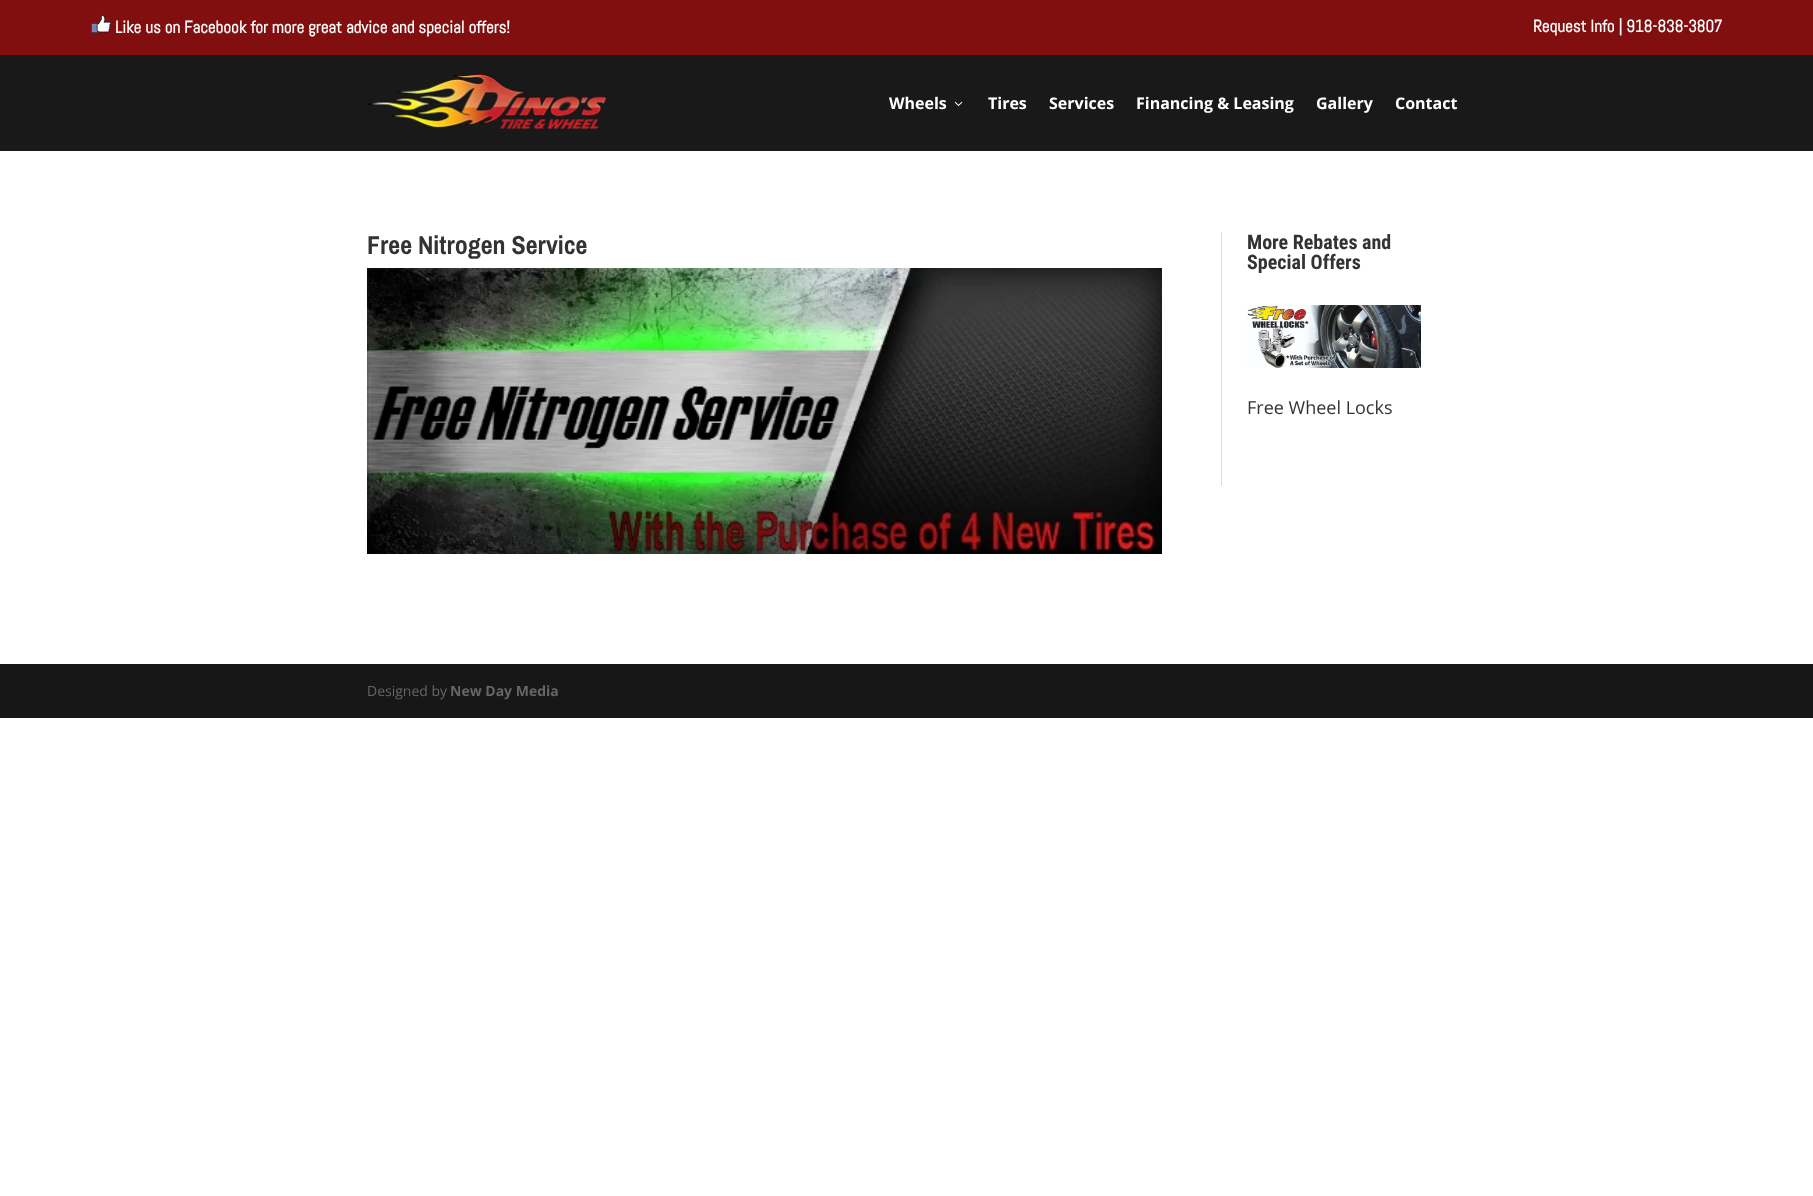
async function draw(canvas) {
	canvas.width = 1813;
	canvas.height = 1196;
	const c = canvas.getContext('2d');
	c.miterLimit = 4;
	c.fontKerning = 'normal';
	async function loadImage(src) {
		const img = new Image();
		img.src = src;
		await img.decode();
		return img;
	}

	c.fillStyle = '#fff';
	c.fillRect(0, 0, 1813, 1196);
	c.fillStyle = '#820f0f';
	c.fillRect(0, 0, 1813, 55);
	c.drawImage(await loadImage('img1.png'), 91, 15, 20, 18);
	c.font = 'bold 17px Abel';
	c.fillStyle = '#fff';
	c.fillText('Like us on Facebook for more great advice and special offers!', 115, 33);
	c.fillText('Request Info | 918-838-3807', 1533, 32);
	c.fillStyle = '#19191a';
	c.fillRect(0, 55, 1813, 96);
	c.drawImage(await loadImage('img2.png'), 367, 74, 240, 56);
	c.font = 'bold 16px Open Sans';
	c.fillStyle = '#fff';
	c.fillText('Wheels', 889, 109);
	c.drawImage(await loadImage('img3.png'), 954, 101, 9, 5);
	for (const [text, x, y] of [
		['Tires', 988, 109],
		['Services', 1049, 109],
		['Financing & Leasing', 1136, 109],
		['Gallery', 1316, 109],
		['Contact', 1395, 109],
	]) {
		c.fillText(text, x, y);
	}
	c.font = 'bold 26px Archivo Narrow';
	c.fillStyle = '#333';
	c.fillText('Free Nitrogen Service', 367, 254);
	c.drawImage(await loadImage('img4.png'), 367, 268, 795, 286);
	c.fillStyle = '#ddd';
	c.fillRect(1221, 232, 1, 254);
	c.font = 'bold 20px Roboto Condensed';
	c.fillStyle = '#333';
	c.fillText('More Rebates and', 1247, 249);
	c.fillText('Special Offers', 1247, 269);
	c.drawImage(await loadImage('img5.png'), 1247, 305, 174, 63);
	c.font = '18px Open Sans';
	c.fillText('Free Wheel Locks', 1247, 414);
	c.fillStyle = '#171717';
	c.fillRect(0, 664, 1813, 54);
	c.font = '14px Open Sans';
	c.fillStyle = '#666';
	c.fillText('Designed by', 367, 696);
	c.font = 'bold 14px Open Sans';
	c.fillText('New Day Media', 450, 696);
}

draw(document.querySelector('canvas'));
